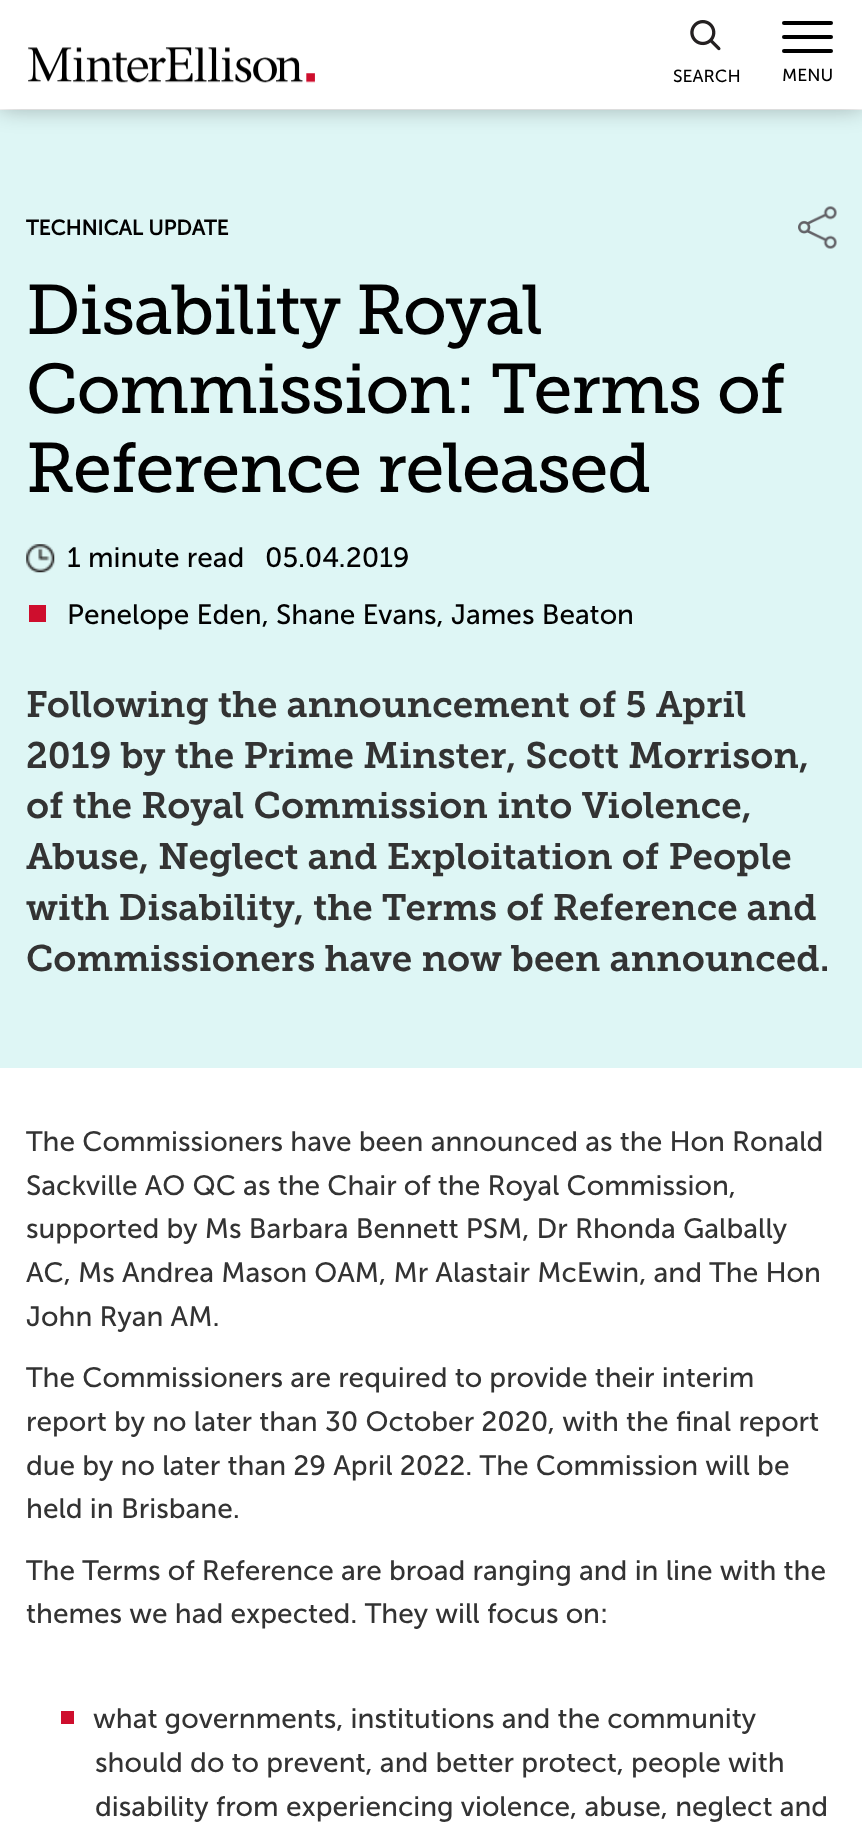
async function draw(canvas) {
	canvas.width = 862;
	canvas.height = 1846;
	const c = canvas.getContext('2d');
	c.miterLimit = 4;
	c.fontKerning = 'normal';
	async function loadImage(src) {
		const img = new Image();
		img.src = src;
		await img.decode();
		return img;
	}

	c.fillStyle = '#fff';
	c.fillRect(0, 0, 862, 1846);
	c.fillStyle = '#def6f5';
	c.fillRect(0, 110, 862, 958);
	c.fillStyle = '#00000052';
	c.filter = 'blur(12px)';
	c.beginPath();
	c.rect(0, -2, 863, 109);
	c.fill();
	c.filter = 'none';
	c.fillStyle = '#fff';
	c.fillRect(0, 0, 862, 109);
	c.drawImage(await loadImage('img1.png'), 28, 47, 287, 36);
	c.drawImage(await loadImage('img2.png'), 690, 20, 31, 31);
	c.font = '17.5px Museo Sans';
	c.fillStyle = '#010101';
	c.fillText('SEARCH', 673, 82);
	c.fillStyle = '#000';
	c.beginPath();
	c.roundRect(782, 21, 51, 4, 2);
	c.fill();
	c.beginPath();
	c.roundRect(782, 35, 51, 4, 2);
	c.fill();
	c.beginPath();
	c.roundRect(782, 49, 51, 4, 2);
	c.fill();
	c.fillStyle = '#010101';
	c.fillText('MENU', 782, 81);
	c.font = 'bold 21px Museo Sans';
	c.fillText('TECHNICAL UPDATE', 26, 235);
	c.drawImage(await loadImage('img3.png'), 798, 206, 39, 43);
	c.letterSpacing = '-1.25px';
	c.font = '70px Museo Slab';
	for (const [text, x, y] of [
		['Disability Royal', 26, 334],
		['Commission: Terms of', 26, 413],
		['Reference released', 26, 492],
	]) {
		c.fillText(text, x, y);
	}
	c.drawImage(await loadImage('img4.png'), 26, 544, 29, 29);
	c.letterSpacing = '0px';
	c.font = '28px Museo Sans';
	c.fillText('1 minute read', 67, 567);
	c.fillText('05.04.2019', 265, 567);
	c.fillStyle = '#ce0e2d';
	c.fillRect(29, 605, 17, 17);
	c.fillStyle = '#010101';
	c.fillText('Penelope Eden, Shane Evans, James Beaton', 67, 624);
	c.font = '600 36.75px Museo Slab';
	c.fillStyle = '#333';
	for (const [text, x, y] of [
		['Following the announcement of 5 April', 26, 717],
		['2019 by the Prime Minster, Scott Morrison,', 26, 768],
		['of the Royal Commission into Violence,', 26, 818],
		['Abuse, Neglect and Exploitation of People', 26, 869],
		['with Disability, the Terms of Reference and', 26, 920],
		['Commissioners have now been announced.', 26, 971],
	]) {
		c.fillText(text, x, y);
	}
	c.font = '28px Museo Sans';
	for (const [text, x, y] of [
		['The Commissioners have been announced as the Hon Ronald', 26, 1151],
		['Sackville AO QC as the Chair of the Royal Commission,', 26, 1195],
		['supported by Ms Barbara Bennett PSM, Dr Rhonda Galbally', 26, 1238],
		['AC, Ms Andrea Mason OAM, Mr Alastair McEwin, and The Hon', 26, 1282],
		['John Ryan AM.', 26, 1326],
		['The Commissioners are required to provide their interim', 26, 1387],
		['report by no later than 30 October 2020, with the final report', 26, 1431],
		['due by no later than 29 April 2022. The Commission will be', 26, 1475],
		['held in Brisbane.', 26, 1518],
		['The Terms of Reference are broad ranging and in line with the', 26, 1580],
		['themes we had expected. They will focus on:', 26, 1623],
	]) {
		c.fillText(text, x, y);
	}
	c.fillStyle = '#ce0e2d';
	c.fillRect(61, 1711, 13, 13);
	c.fillStyle = '#333';
	for (const [text, x, y] of [
		['what governments, institutions and the community', 93, 1728],
		['should do to prevent, and better protect, people with', 95, 1772],
		['disability from experiencing violence, abuse, neglect and', 95, 1816],
	]) {
		c.fillText(text, x, y);
	}
}

draw(document.querySelector('canvas'));
